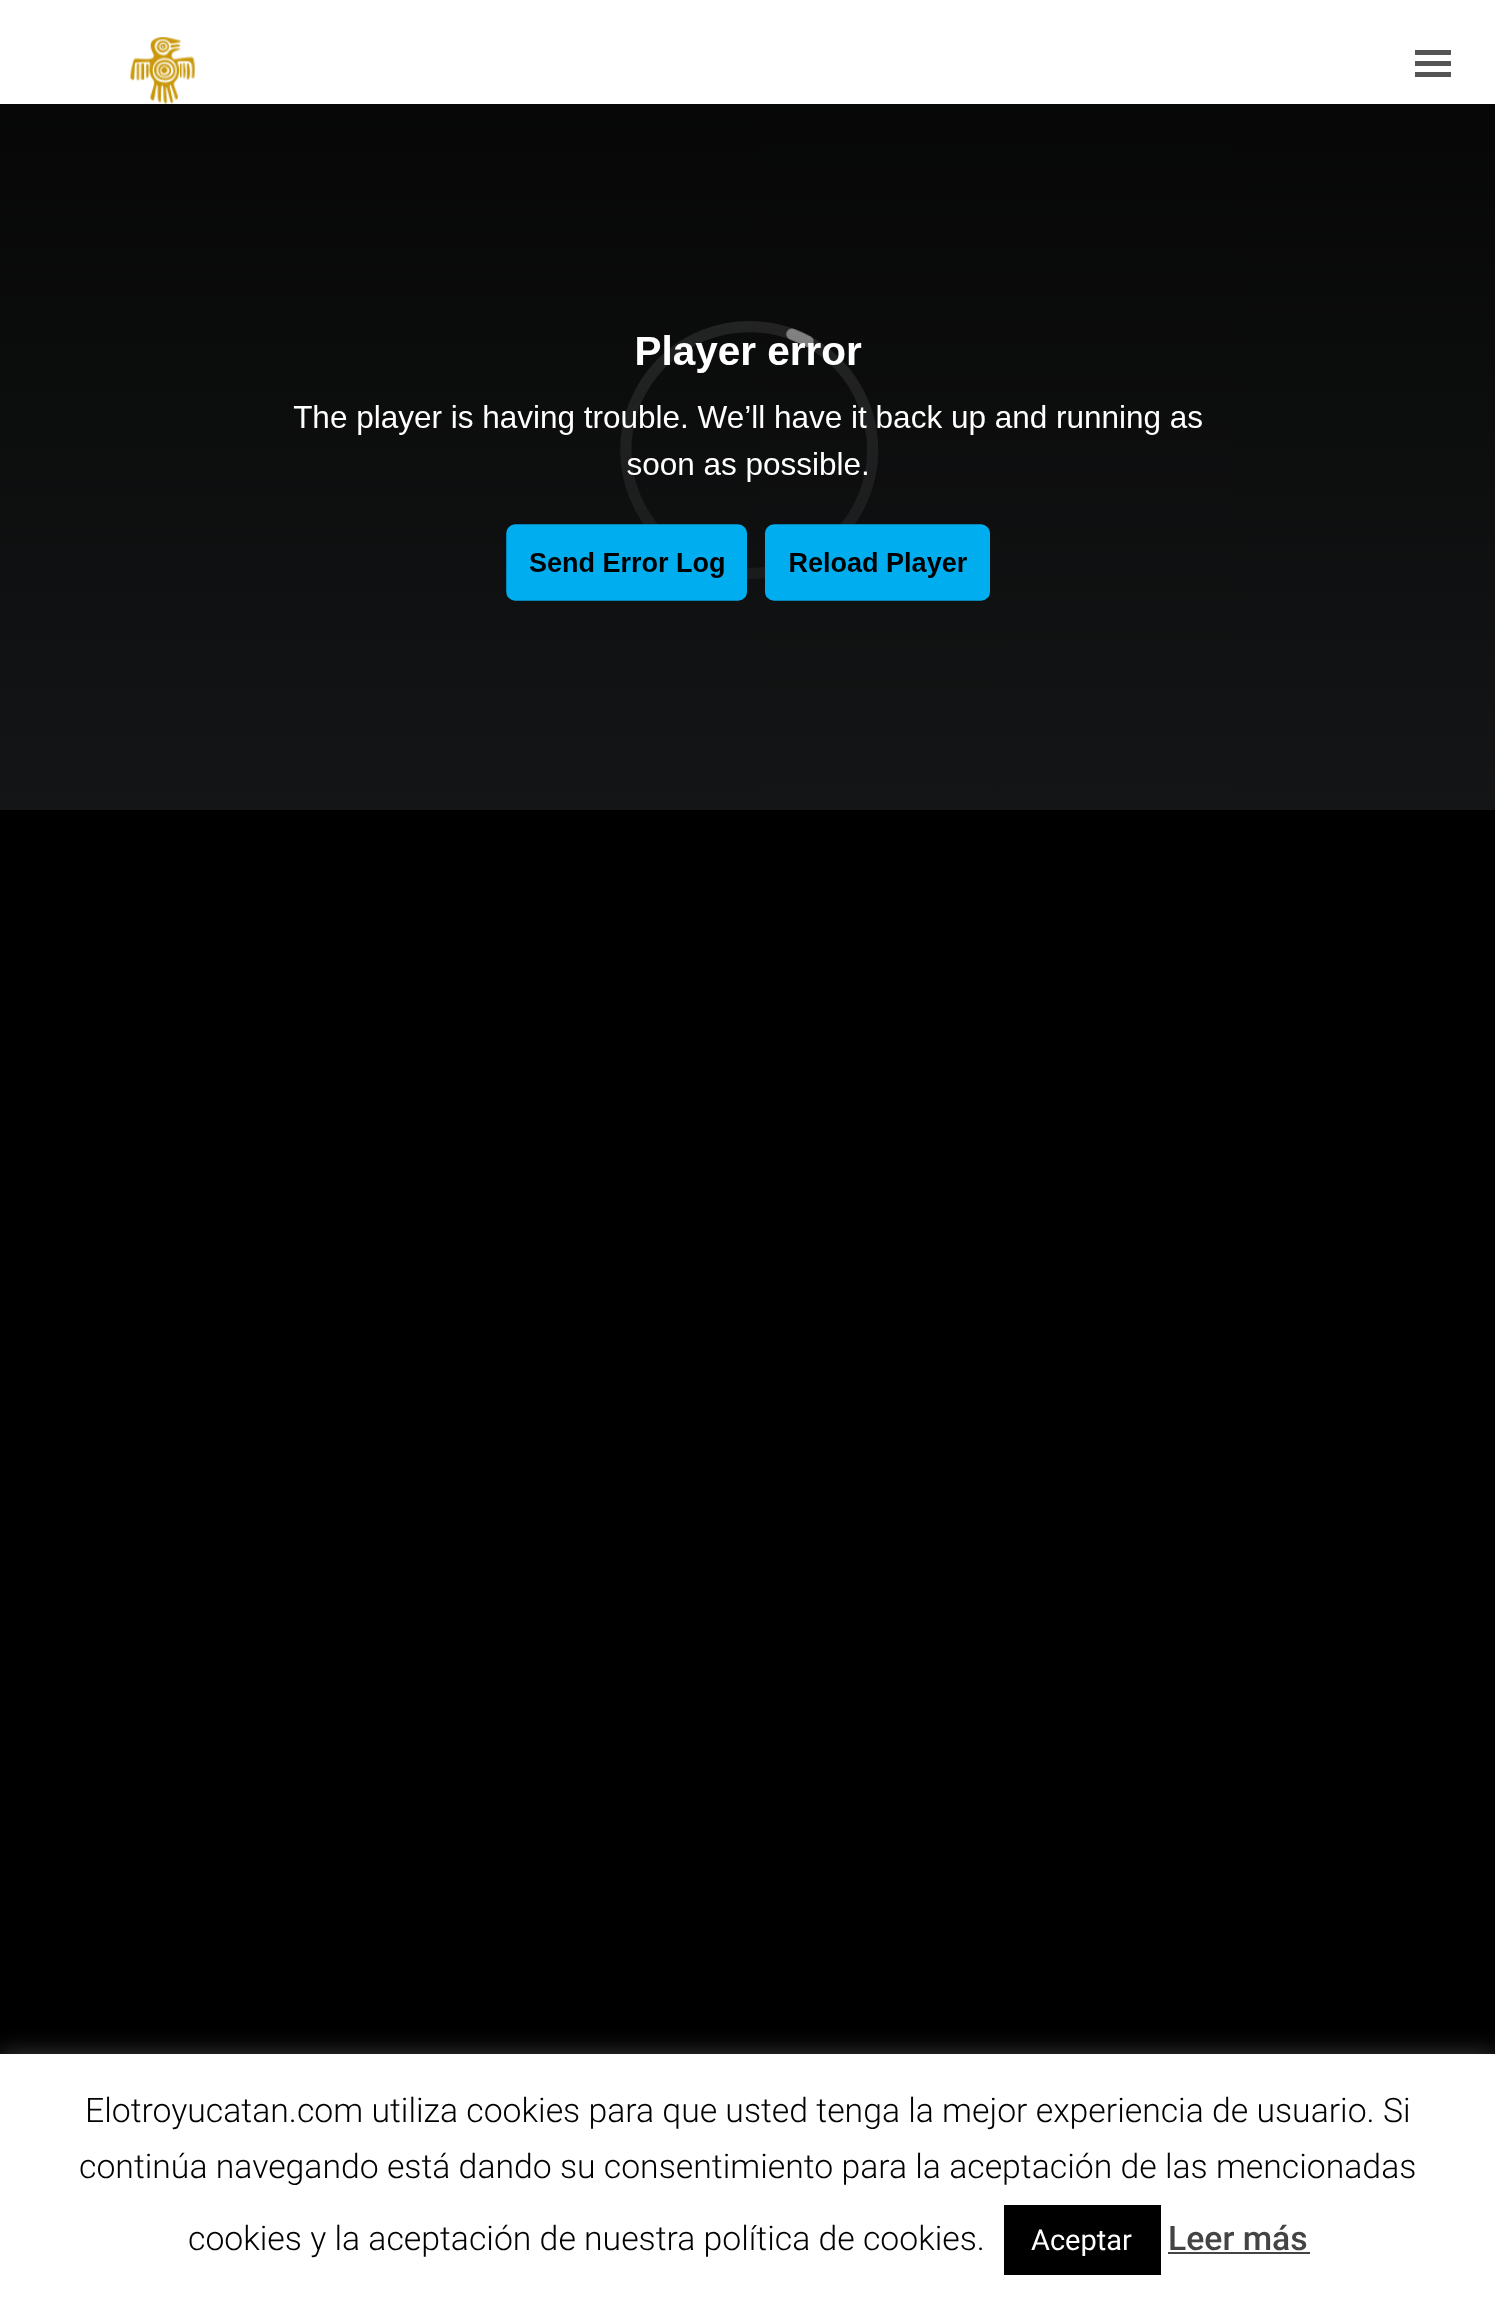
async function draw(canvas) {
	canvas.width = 1495;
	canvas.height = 2300;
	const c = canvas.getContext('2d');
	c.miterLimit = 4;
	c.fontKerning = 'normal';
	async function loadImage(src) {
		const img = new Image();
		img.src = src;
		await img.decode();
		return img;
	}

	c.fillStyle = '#000';
	c.fillRect(0, 0, 1495, 2300);
	c.fillStyle = '#fff';
	c.fillRect(0, 0, 1495, 104);
	c.drawImage(await loadImage('img1.png'), 130, 37, 65, 67);
	for (const [x, y, w, h, color] of [
		[1415, 50, 36, 5, '#555'],
		[1415, 61, 36, 5, '#555'],
		[1415, 72, 36, 5, '#555'],
	]) {
		c.fillStyle = color;
		c.fillRect(x, y, w, h);
	}
	c.drawImage(await loadImage('img2.png'), 0, 104, 1495, 706);
	c.fillStyle = '#acabab4d';
	c.filter = 'blur(11px)';
	c.beginPath();
	c.rect(0, 2052, 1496, 248);
	c.fill();
	c.filter = 'none';
	c.fillStyle = '#fff';
	c.fillRect(0, 2054, 1495, 246);
	c.font = '300 33.75px Roboto';
	c.fillStyle = '#000';
	for (const [text, x, y] of [
		['Elotroyucatan.com utiliza cookies para que usted tenga la mejor experiencia de usuario. Si', 85, 2122],
		['continúa navegando está dando su consentimiento para la aceptación de las mencionadas', 79, 2178],
		['cookies y la aceptación de nuestra política de cookies.', 188, 2250],
	]) {
		c.fillText(text, x, y);
	}
	c.fillRect(1004, 2205, 157, 70);
	c.font = '29px Roboto';
	c.fillStyle = '#fff';
	c.fillText('Aceptar', 1031, 2250);
	c.font = '500 33.75px Roboto';
	c.fillStyle = '#444';
	c.fillText('Leer más', 1168, 2250);
	c.fillRect(1168, 2252, 142, 2);
}

draw(document.querySelector('canvas'));
